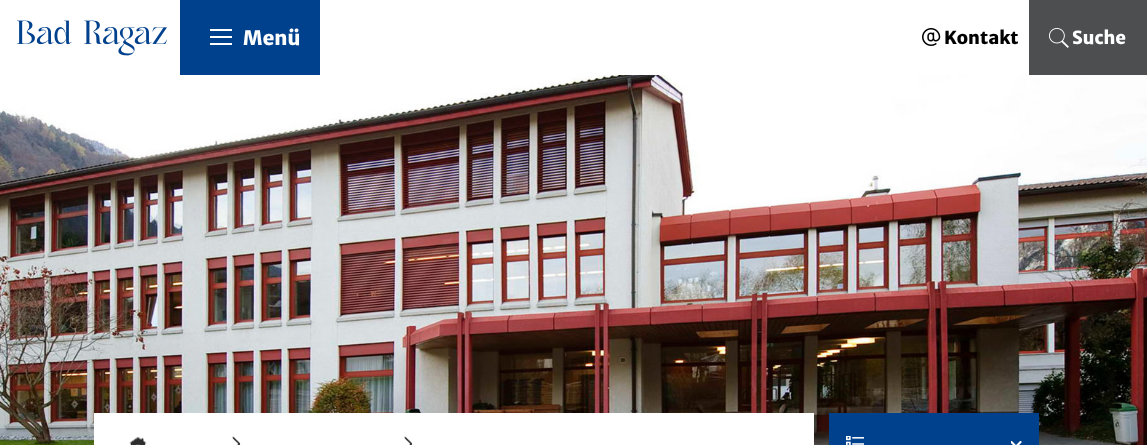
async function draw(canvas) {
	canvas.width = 1147;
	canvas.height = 445;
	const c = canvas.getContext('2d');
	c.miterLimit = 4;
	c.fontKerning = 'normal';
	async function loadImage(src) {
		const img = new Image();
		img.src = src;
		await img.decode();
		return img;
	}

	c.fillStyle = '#fff';
	c.fillRect(0, 0, 1147, 445);
	c.drawImage(await loadImage('img1.png'), 17, 20, 150, 36);
	c.fillStyle = '#00418e';
	c.fillRect(180, 0, 140, 75);
	c.fillStyle = '#fff';
	c.fillRect(210, 29, 22, 2);
	c.font = '800 20px Merriweather Sans';
	c.fillText('Menü', 243, 45);
	c.fillRect(210, 36, 22, 2);
	c.fillRect(210, 43, 22, 2);
	c.drawImage(await loadImage('img2.png'), 922, 28, 19, 18);
	c.font = '800 18px Merriweather Sans';
	c.fillStyle = '#000';
	c.fillText('Kontakt', 944, 44);
	c.fillStyle = '#4c4e4f';
	c.fillRect(1029, 0, 118, 75);
	c.drawImage(await loadImage('img3.png'), 1049, 28, 20, 20);
	c.fillStyle = '#fff';
	c.fillText('Suche', 1072, 44);
	c.drawImage(await loadImage('img4.png'), 0, 75, 1147, 370);
	c.fillRect(94, 413, 720, 32);
	c.drawImage(await loadImage('img5.png'), 129, 436, 18, 9);
	c.drawImage(await loadImage('img6.png'), 232, 436, 9, 9);
	c.drawImage(await loadImage('img6.png'), 404, 436, 9, 9);
	c.fillStyle = '#00418e';
	c.fillRect(829, 413, 210, 32);
	c.drawImage(await loadImage('img7.png'), 846, 436, 18, 9);
	c.drawImage(await loadImage('img8.png'), 1011, 441, 11, 4);
}

draw(document.querySelector('canvas'));
